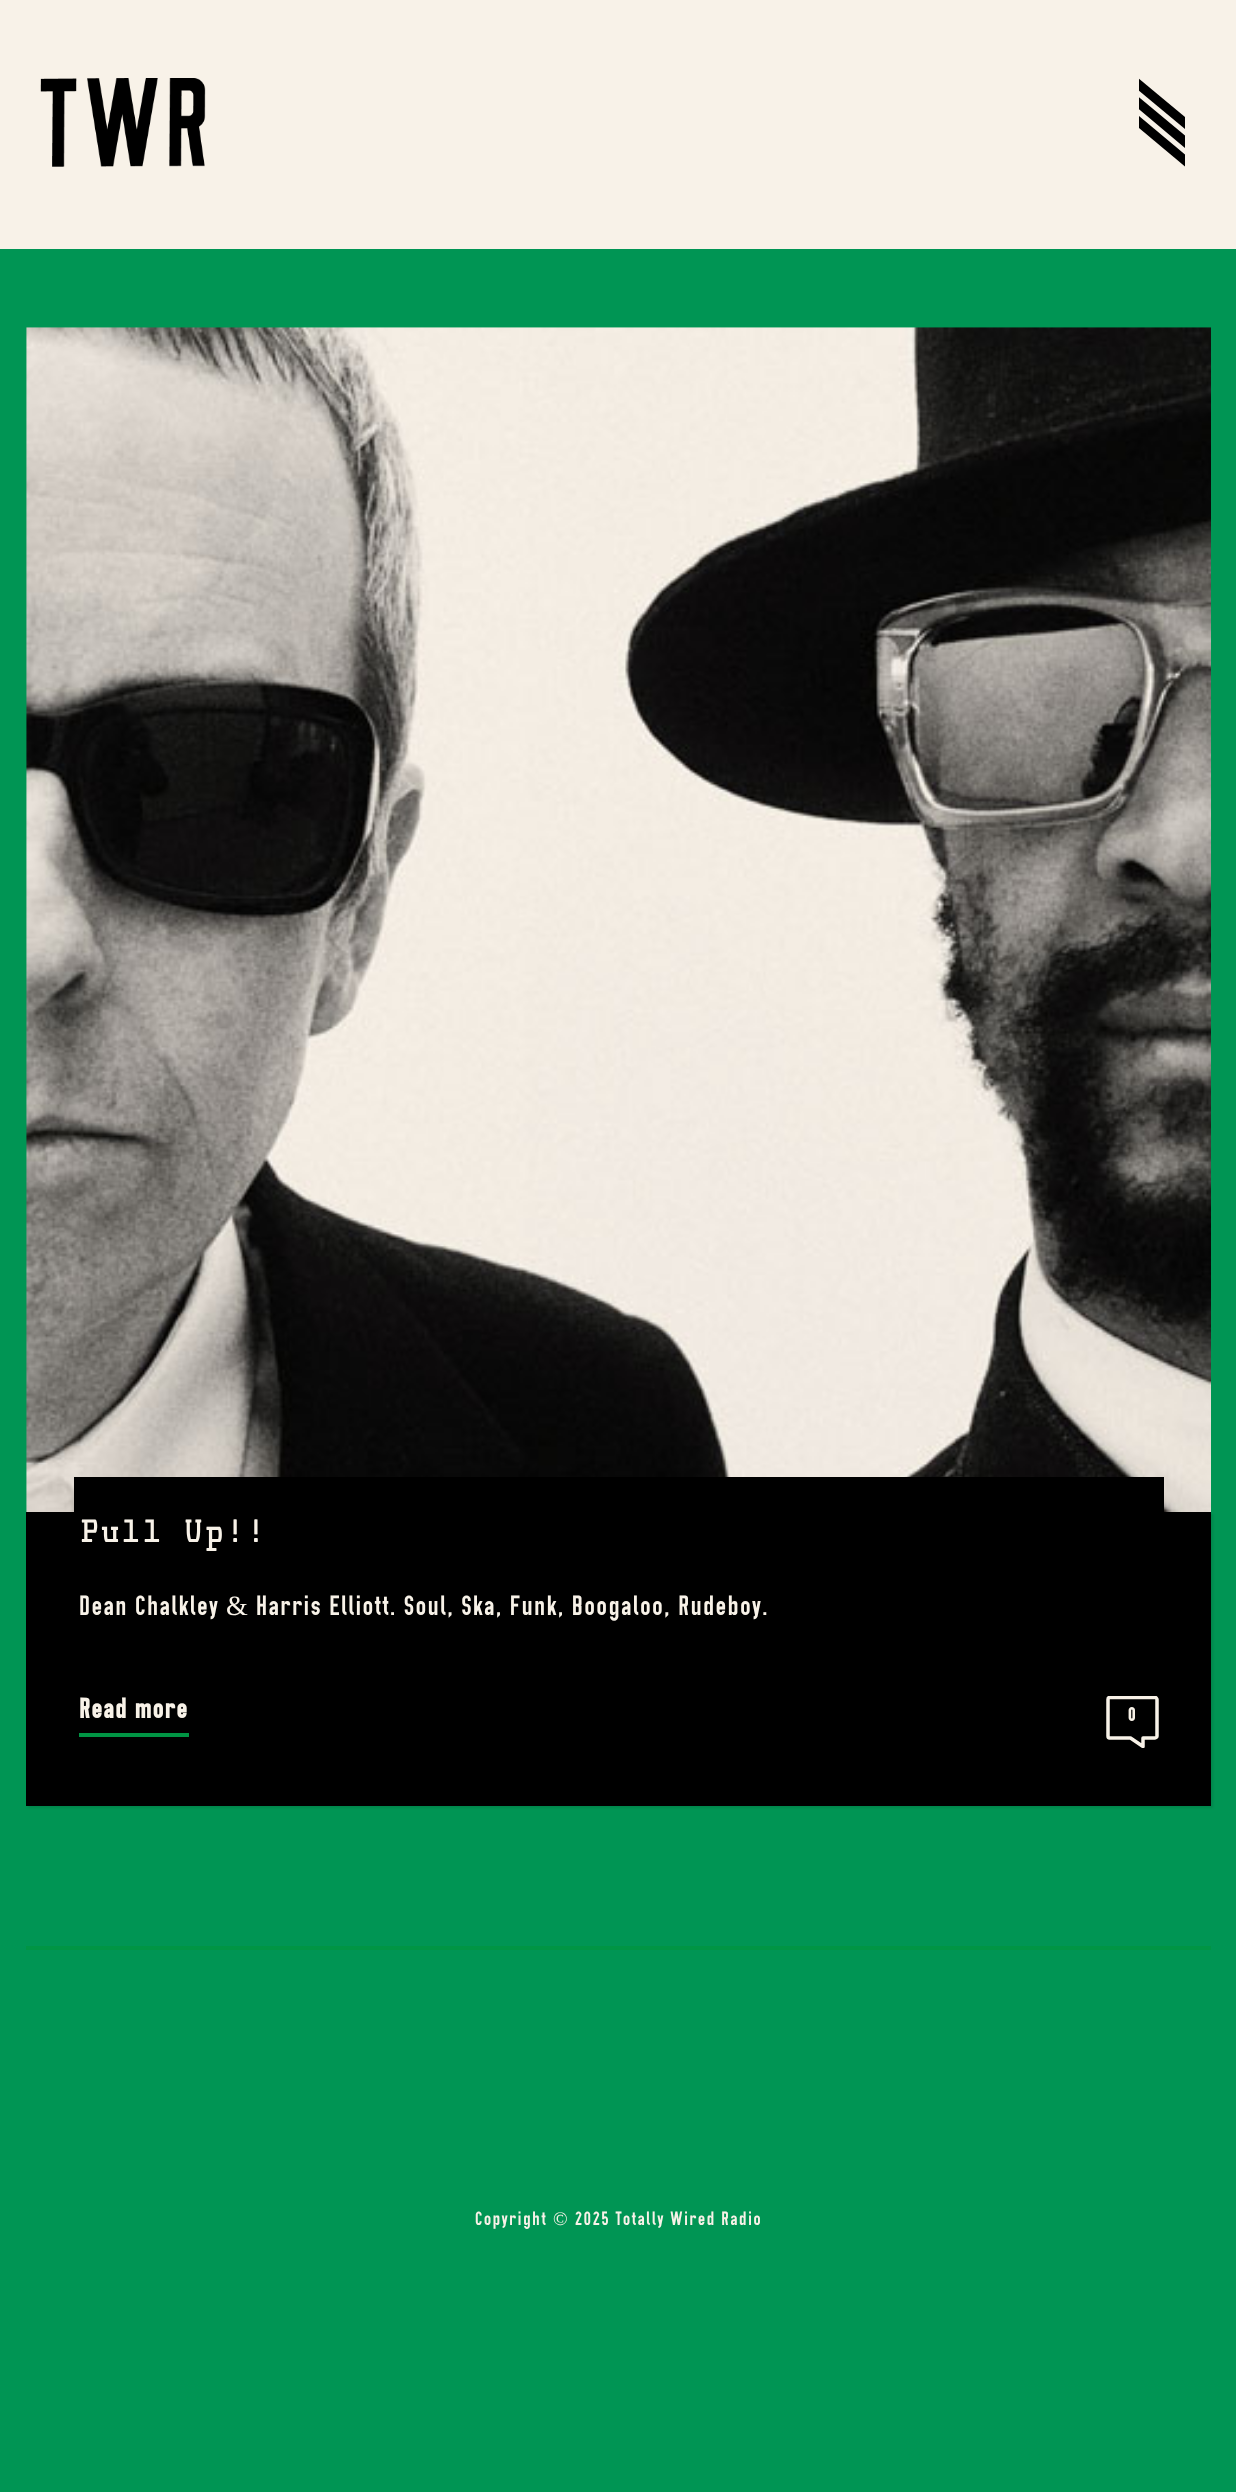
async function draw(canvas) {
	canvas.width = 1236;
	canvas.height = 2492;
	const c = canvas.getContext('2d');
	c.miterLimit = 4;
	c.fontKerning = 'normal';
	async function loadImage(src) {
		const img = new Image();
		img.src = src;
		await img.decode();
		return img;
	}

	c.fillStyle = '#009554';
	c.fillRect(0, 0, 1236, 2492);
	c.fillStyle = '#f8f2e8';
	c.fillRect(0, 0, 1236, 249);
	c.save();
	c.beginPath();
	c.rect(1139, 70, 46, 114);
	c.clip();
	c.fillStyle = '#000';
	c.beginPath();
	c.moveTo(1125, 67);
	c.lineTo(1226, 151);
	c.lineTo(1220, 158);
	c.lineTo(1119, 74);
	c.closePath();
	c.fill();
	c.beginPath();
	c.moveTo(1116, 78);
	c.lineTo(1217, 162);
	c.lineTo(1210, 169);
	c.lineTo(1110, 85);
	c.closePath();
	c.fill();
	c.beginPath();
	c.moveTo(1107, 89);
	c.lineTo(1207, 173);
	c.lineTo(1201, 180);
	c.lineTo(1101, 96);
	c.closePath();
	c.fill();
	c.restore();
	c.drawImage(await loadImage('img1.png'), 40, 78, 166, 89);
	c.fillStyle = '#0000001a';
	c.filter = 'blur(1px)';
	c.beginPath();
	c.rect(28, 1514, 1185, 294);
	c.fill();
	c.filter = 'none';
	c.drawImage(await loadImage('img2.png'), 26, 327, 1185, 1185);
	c.fillStyle = '#000';
	c.fillRect(26, 1512, 1185, 294);
	c.fillRect(74, 1477, 1090, 35);
	c.font = '31.5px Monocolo';
	c.fillStyle = '#f8f2e8';
	c.fillText('Pull Up!!', 79, 1542);
	c.letterSpacing = '1.75px';
	c.font = '500 28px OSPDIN';
	c.fillText('Dean Chalkley', 79, 1615);
	c.font = '28px Liberation Serif';
	c.fillText('&', 226, 1615);
	c.font = '500 28px OSPDIN';
	c.fillText('Harris Elliott. Soul, Ska, Funk, Boogaloo, Rudeboy.', 256, 1615);
	c.fillStyle = '#009544';
	c.fillRect(79, 1733, 110, 4);
	c.font = 'bold 28px OSPDIN';
	c.fillStyle = '#f8f2e8';
	c.fillText('Read more', 79, 1718);
	c.save();
	c.beginPath();
	c.rect(1106, 1696, 53, 52);
	c.clip();
	c.beginPath();
	c.moveTo(1130.5, 1738);
	c.lineTo(1109.5, 1738);
	c.bezierCurveTo(1108.5, 1738, 1108, 1737, 1108, 1736);
	c.lineTo(1108, 1699.5);
	c.bezierCurveTo(1108, 1698.5, 1108.5, 1697.5, 1109.5, 1697.5);
	c.lineTo(1155, 1697.5);
	c.bezierCurveTo(1156, 1697.5, 1157, 1698.5, 1157, 1699.5);
	c.lineTo(1157, 1736);
	c.bezierCurveTo(1157, 1737, 1156, 1738, 1155, 1738);
	c.lineTo(1143, 1738);
	c.lineTo(1143, 1746.5);
	c.closePath();
	c.strokeStyle = '#f8f2e8';
	c.lineWidth = 3.5;
	c.lineCap = 'round';
	c.lineJoin = 'round';
	c.stroke();
	c.restore();
	c.font = 'bold 19.25px OSPDIN';
	c.fillText('0', 1128, 1721);
	c.fillStyle = '#009544';
	c.fillRect(26, 1946, 1185, 4);
	c.font = '500 19.25px OSPDIN';
	c.fillStyle = '#f8f2e8';
	c.fillText('Copyright', 475, 2225);
	c.font = '19.25px Liberation Serif';
	c.fillText('©', 553, 2225);
	c.font = '500 19.25px OSPDIN';
	c.fillText('2025 Totally Wired Radio', 575, 2225);
}

draw(document.querySelector('canvas'));
